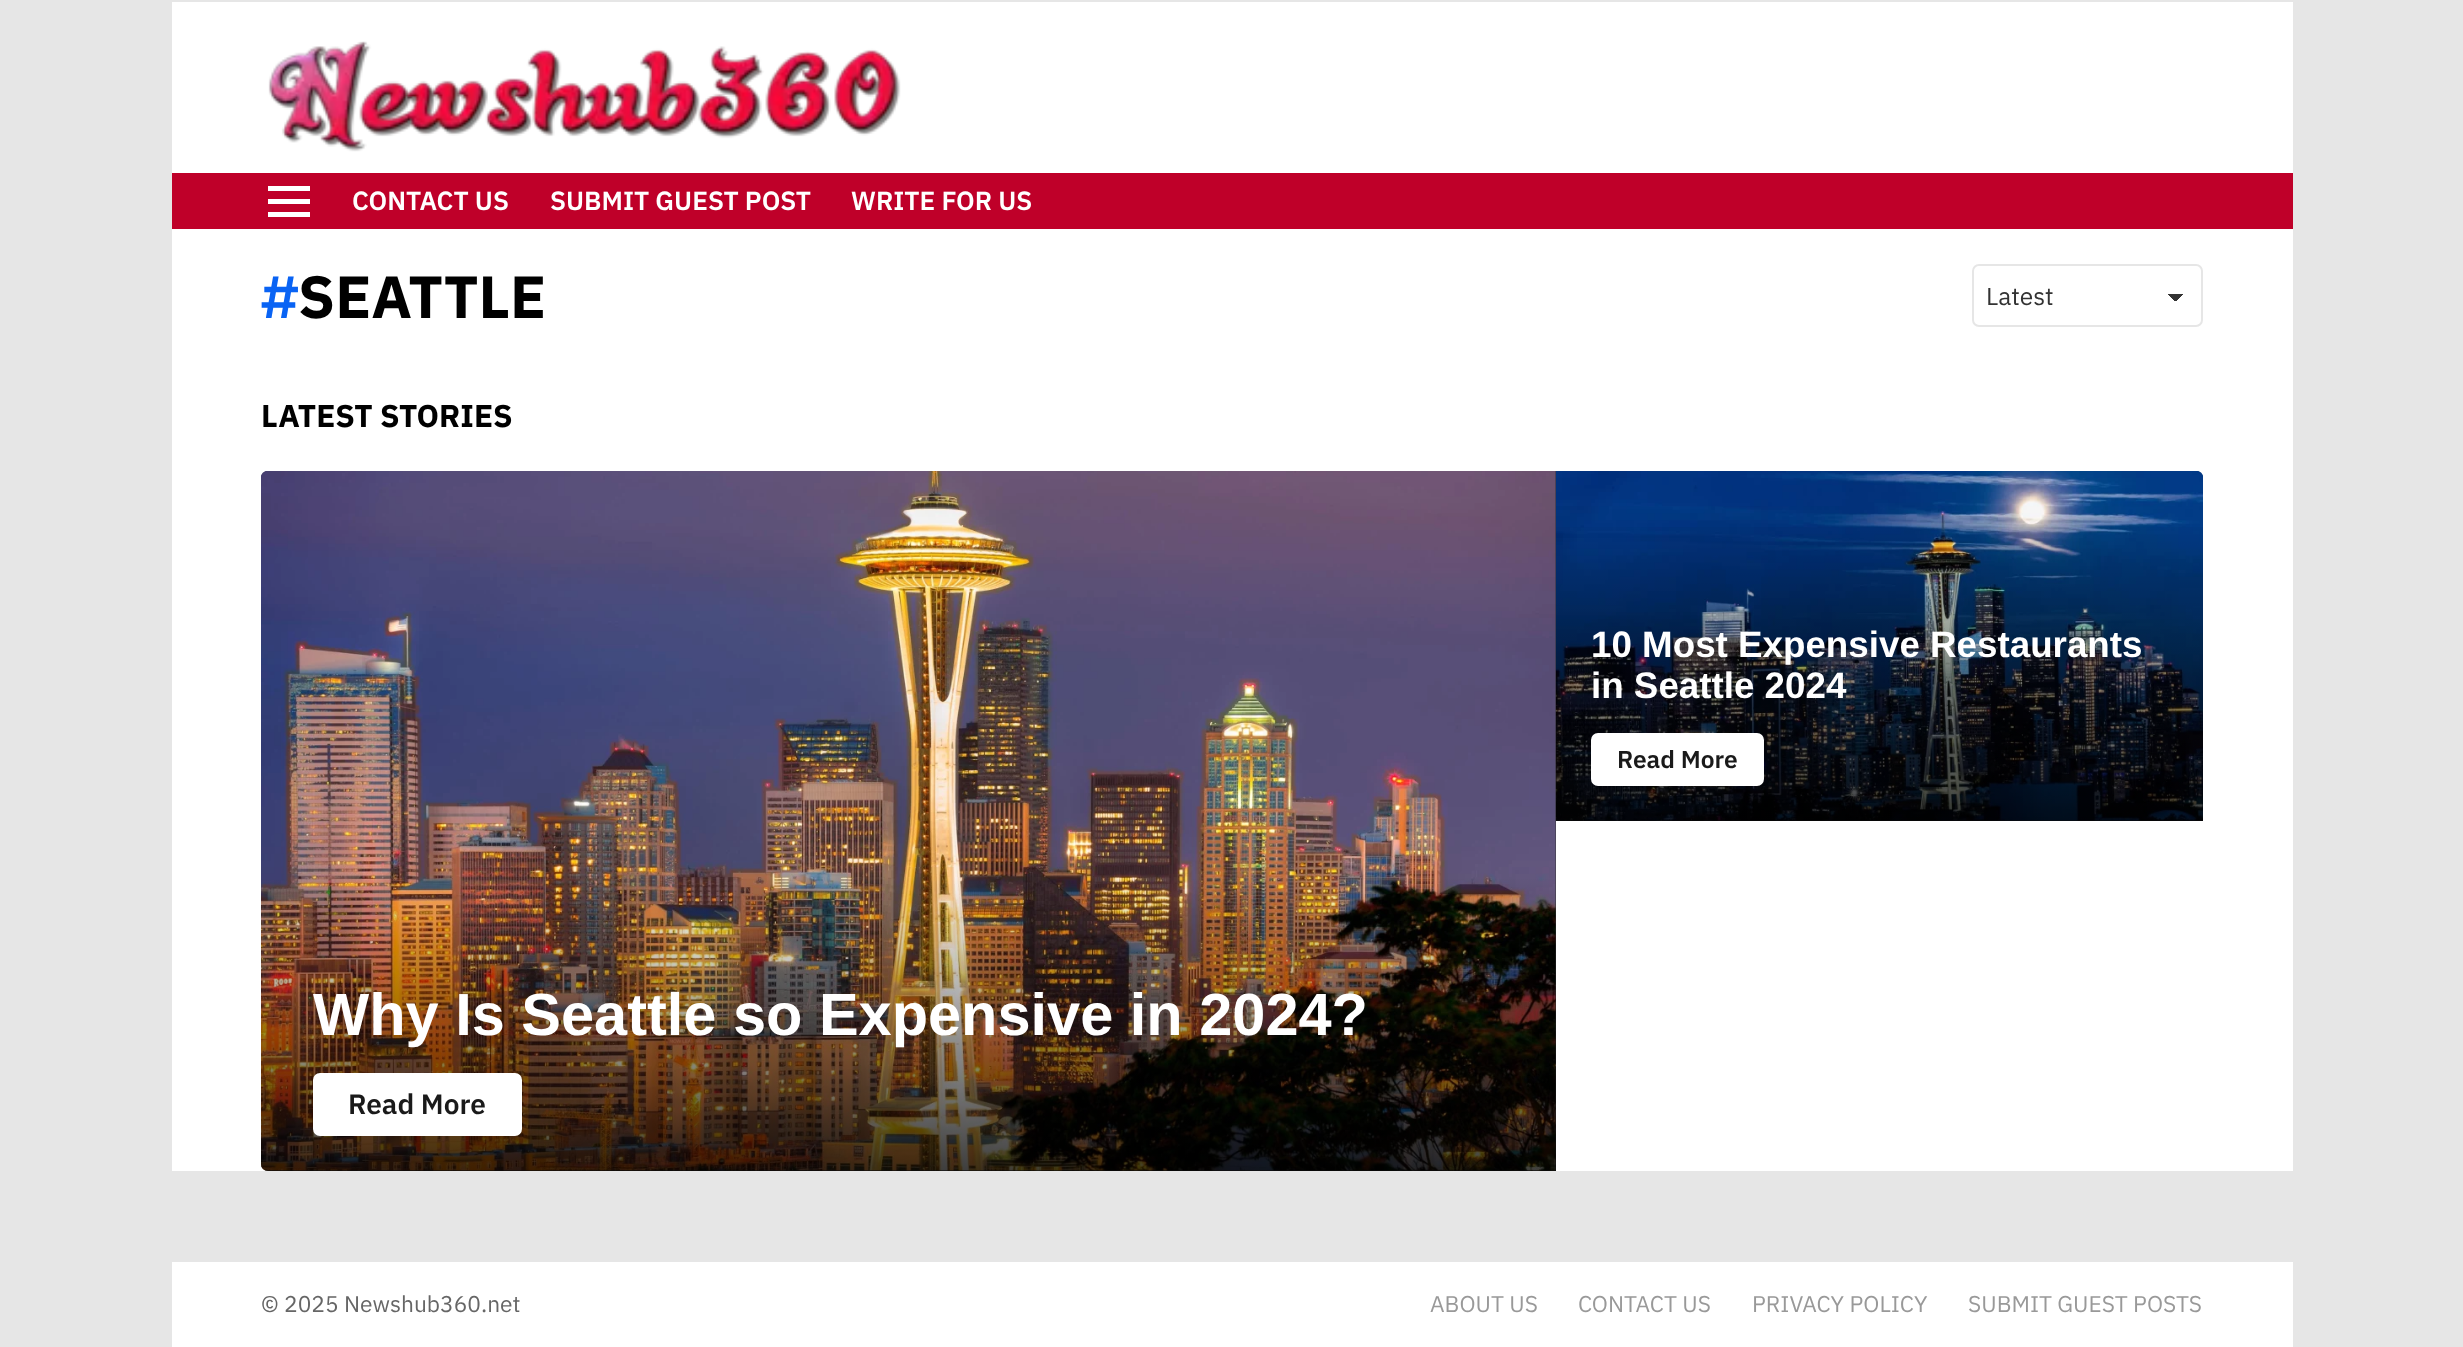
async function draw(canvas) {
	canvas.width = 2463;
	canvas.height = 1347;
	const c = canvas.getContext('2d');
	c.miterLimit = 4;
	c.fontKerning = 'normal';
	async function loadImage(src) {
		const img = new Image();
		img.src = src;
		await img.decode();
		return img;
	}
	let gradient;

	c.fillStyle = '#e6e6e6';
	c.fillRect(0, 0, 2463, 1347);
	c.fillStyle = '#fff';
	c.fillRect(172, 2, 2121, 171);
	c.drawImage(await loadImage('img1.png'), 268, 41, 633, 111);
	c.fillStyle = '#bf0029';
	c.fillRect(172, 173, 2121, 56);
	c.fillStyle = '#fff';
	c.beginPath();
	c.moveTo(268, 186);
	c.lineTo(310, 186);
	c.lineTo(310, 191);
	c.lineTo(268, 191);
	c.closePath();
	c.moveTo(268, 199);
	c.lineTo(310, 199);
	c.lineTo(310, 204);
	c.lineTo(268, 204);
	c.closePath();
	c.moveTo(268, 212);
	c.lineTo(310, 212);
	c.lineTo(310, 217);
	c.lineTo(268, 217);
	c.closePath();
	c.fill();
	c.font = '600 26.25px IBM Plex Sans';
	for (const [text, x, y] of [
		['CONTACT US', 352, 210],
		['SUBMIT GUEST POST', 550, 210],
		['WRITE FOR US', 851, 210],
	]) {
		c.fillText(text, x, y);
	}
	c.fillRect(172, 229, 2121, 942);
	c.font = 'bold 59.5px IBM Plex Sans';
	c.fillStyle = '#0963f4';
	c.fillText('#', 261, 318);
	c.fillStyle = '#000';
	c.fillText('SEATTLE', 298, 318);
	gradient = c.createLinearGradient(2176, 294, 2184, 301);
	gradient.addColorStop(0.5, '#333');
	gradient.addColorStop(0.5, '#fff');
	c.fillStyle = gradient;
	c.fillRect(2175, 294, 9, 7);
	gradient = c.createLinearGradient(2167, 301, 2175, 294);
	gradient.addColorStop(0.5, '#fff');
	gradient.addColorStop(0.5, '#333');
	c.fillStyle = gradient;
	c.fillRect(2167, 294, 8, 7);
	c.beginPath();
	c.roundRect(1973, 265, 229, 61, 6);
	c.strokeStyle = '#e6e6e6';
	c.lineWidth = 2;
	c.stroke();
	c.font = '24.5px IBM Plex Sans';
	c.fillStyle = '#333';
	c.fillText('Latest', 1986, 305);
	c.font = 'bold 31.5px IBM Plex Sans';
	c.fillStyle = '#000';
	c.fillText('LATEST STORIES', 261, 427);
	c.fillStyle = '#333';
	c.beginPath();
	c.roundRect(1556, 471, 647, 350, [0, 7, 0, 0]);
	c.fill();
	c.beginPath();
	c.roundRect(261, 471, 1295, 700, [7, 0, 0, 7]);
	c.fill();
	c.drawImage(await loadImage('img3.png'), 261, 471, 1295, 700);
	c.drawImage(await loadImage('img2.png'), 1555, 471, 648, 350);
	gradient = c.createLinearGradient(1880, 518, 1880, 821);
	gradient.addColorStop(0, '#00000000');
	gradient.addColorStop(1, '#000000bf');
	c.fillStyle = gradient;
	c.fillRect(1556, 527, 647, 294);
	c.font = 'bold 36.75px Liberation Sans';
	c.fillStyle = '#fff';
	c.fillText('10 Most Expensive Restaurants', 1591, 657);
	c.fillText('in Seattle 2024', 1591, 698);
	c.beginPath();
	c.roundRect(1592, 734, 171, 51, 6);
	c.fill();
	c.strokeStyle = '#fff';
	c.stroke();
	c.font = '600 24.5px IBM Plex Sans';
	c.fillStyle = '#1a1a1a';
	c.fillText('Read More', 1617, 768);
	gradient = c.createLinearGradient(908, 877, 908, 1171);
	gradient.addColorStop(0, '#00000000');
	gradient.addColorStop(1, '#000000bf');
	c.fillStyle = gradient;
	c.beginPath();
	c.roundRect(261, 877, 1295, 294, [0, 0, 0, 7]);
	c.fill();
	c.font = 'bold 59.5px Liberation Sans';
	c.fillStyle = '#fff';
	c.fillText('Why Is Seattle so Expensive in 2024?', 313, 1035);
	c.beginPath();
	c.roundRect(315, 1075, 205, 59, 5);
	c.fill();
	c.lineWidth = 4;
	c.stroke();
	c.font = '600 28px IBM Plex Sans';
	c.fillStyle = '#1a1a1a';
	c.fillText('Read More', 348, 1114);
	c.fillStyle = '#fff';
	c.fillRect(172, 1262, 2121, 85);
	c.font = '22.75px IBM Plex Sans';
	c.fillStyle = '#666';
	c.fillText('© 2025 Newshub360.net', 261, 1312);
	c.fillStyle = '#999';
	for (const [text, x, y] of [
		['ABOUT US', 1430, 1312],
		['CONTACT US', 1578, 1312],
		['PRIVACY POLICY', 1752, 1312],
		['SUBMIT GUEST POSTS', 1968, 1312],
	]) {
		c.fillText(text, x, y);
	}
}

draw(document.querySelector('canvas'));
